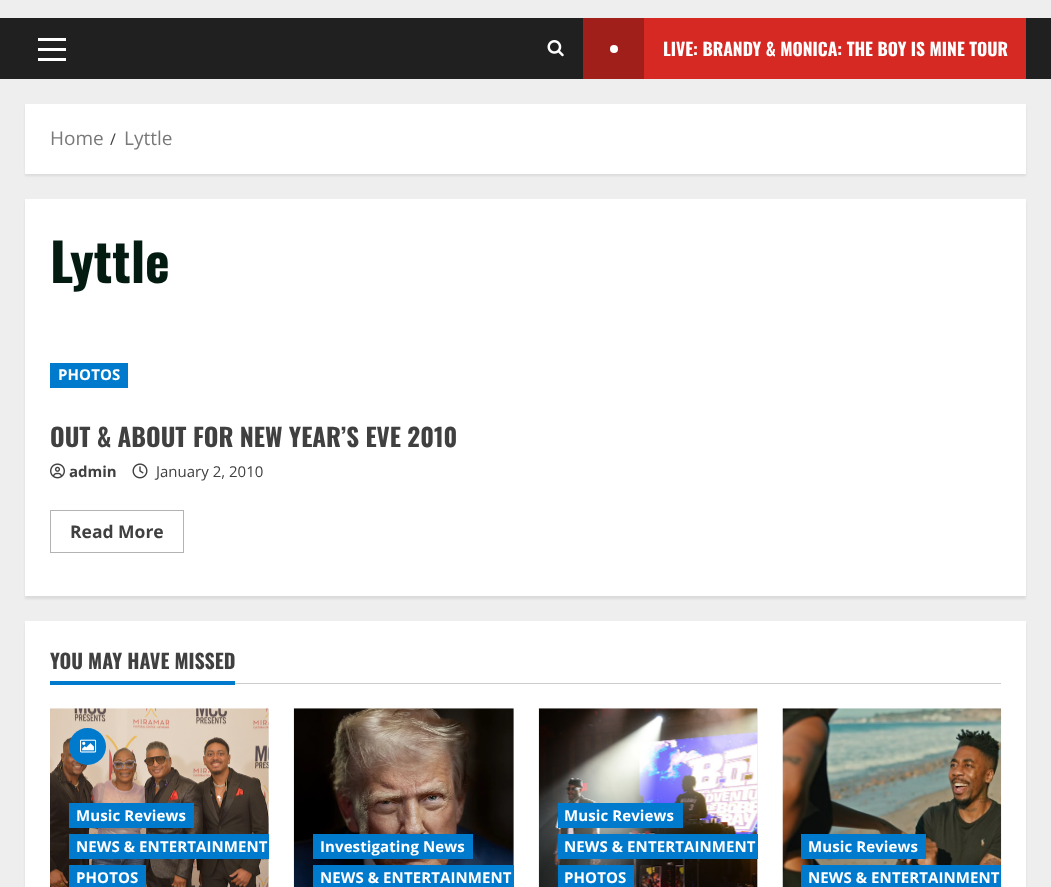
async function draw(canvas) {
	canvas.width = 1051;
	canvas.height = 887;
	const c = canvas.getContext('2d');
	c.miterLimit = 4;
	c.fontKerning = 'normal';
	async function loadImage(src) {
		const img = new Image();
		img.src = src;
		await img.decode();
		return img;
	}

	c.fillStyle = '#eee';
	c.fillRect(0, 0, 1051, 887);
	for (const [x, y, w, h, color] of [
		[0, 18, 1051, 61, '#202020'],
		[38, 48, 28, 3, '#fff'],
		[38, 38, 28, 3, '#fff'],
		[38, 58, 28, 3, '#fff'],
	]) {
		c.fillStyle = color;
		c.fillRect(x, y, w, h);
	}
	c.drawImage(await loadImage('img1.png'), 547, 40, 17, 17);
	c.fillStyle = '#d72924';
	c.fillRect(644, 18, 382, 61);
	c.fillStyle = '#a11f1b';
	c.fillRect(583, 18, 61, 61);
	c.fillStyle = '#fff';
	c.beginPath();
	c.arc(614, 49, 4, 0, 2 * Math.PI);
	c.fill();
	c.font = 'bold 17.5px Oswald';
	c.fillText('LIVE: BRANDY & MONICA: THE BOY IS MINE TOUR', 663, 56);
	c.fillStyle = '#00000014';
	c.filter = 'blur(1px)';
	c.beginPath();
	c.rect(25, 106, 1001, 70);
	c.fill();
	c.filter = 'none';
	c.fillStyle = '#fff';
	c.fillRect(25, 104, 1001, 70);
	c.font = '19px Open Sans';
	c.fillStyle = '#797979';
	c.fillText('Home', 50, 145);
	c.font = '16px Open Sans';
	c.fillStyle = '#404040';
	c.fillText('/', 110, 145);
	c.font = '19px Open Sans';
	c.fillStyle = '#797979';
	c.fillText('Lyttle', 124, 145);
	c.fillStyle = '#00000014';
	c.filter = 'blur(1px)';
	c.beginPath();
	c.rect(25, 201, 1001, 398);
	c.fill();
	c.filter = 'none';
	c.fillStyle = '#fff';
	c.fillRect(25, 199, 1001, 397);
	c.font = 'bold 52.5px Oswald';
	c.fillStyle = '#031b11';
	c.fillText('Lyttle', 50, 283);
	c.fillStyle = '#007acc';
	c.fillRect(50, 363, 78, 25);
	c.letterSpacing = '0.1px';
	c.font = 'bold 15px Open Sans';
	c.fillStyle = '#fff';
	c.fillText('PHOTOS', 58, 380);
	c.letterSpacing = '0px';
	c.font = 'bold 25px Oswald';
	c.fillStyle = '#404040';
	c.fillText('OUT & ABOUT FOR NEW YEAR’S EVE 2010', 50, 447);
	c.drawImage(await loadImage('img2.png'), 50, 463, 15, 16);
	c.font = 'bold 15px Open Sans';
	c.fillText('admin', 69, 477);
	c.drawImage(await loadImage('img3.png'), 132, 463, 16, 16);
	c.font = '15px Open Sans';
	c.fillText('January 2, 2010', 156, 477);
	c.strokeStyle = '#b3b3b3';
	c.strokeRect(50.5, 510.5, 133, 42);
	c.font = 'bold 17.5px Open Sans';
	c.fillText('Read More', 70, 538);
	c.fillStyle = '#00000014';
	c.filter = 'blur(1px)';
	c.beginPath();
	c.rect(25, 624, 1001, 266);
	c.fill();
	c.filter = 'none';
	c.fillStyle = '#fff';
	c.fillRect(25, 621, 1001, 266);
	c.fillStyle = '#ccc';
	c.fillRect(235, 683, 766, 1);
	c.font = 'bold 20px Oswald';
	c.fillStyle = '#404040';
	c.fillText('YOU MAY HAVE MISSED', 50, 669);
	c.fillStyle = '#007acc';
	c.fillRect(50, 681, 185, 4);
	c.fillStyle = '#ececec';
	c.fillRect(268, 709, 1, 178);
	c.drawImage(await loadImage('img4.png'), 50, 708, 219, 179);
	c.fillStyle = '#007acc';
	c.beginPath();
	c.arc(87.5, 746.5, 18.5, 0, 2 * Math.PI);
	c.fill();
	c.drawImage(await loadImage('img5.png'), 80, 739, 17, 14);
	c.fillRect(69, 803, 125, 25);
	c.letterSpacing = '0.1px';
	c.font = 'bold 15px Open Sans';
	c.fillStyle = '#fff';
	c.fillText('Music Reviews', 76, 821);
	c.fillStyle = '#007acc';
	c.fillRect(69, 834, 200, 25);
	c.fillStyle = '#fff';
	c.fillText('NEWS & ENTERTAINMENT', 76, 852);
	c.fillStyle = '#007acc';
	c.fillRect(69, 865, 77, 22);
	c.fillStyle = '#fff';
	c.fillText('PHOTOS', 76, 883);
	c.fillStyle = '#ececec';
	c.fillRect(513, 709, 1, 156);
	c.drawImage(await loadImage('img6.png'), 293, 708, 221, 179);
	c.fillStyle = '#007acc';
	c.fillRect(313, 834, 160, 25);
	c.fillStyle = '#fff';
	c.fillText('Investigating News', 320, 852);
	c.fillStyle = '#007acc';
	c.fillRect(313, 865, 201, 22);
	c.fillStyle = '#fff';
	c.fillText('NEWS & ENTERTAINMENT', 320, 883);
	c.fillStyle = '#ececec';
	c.fillRect(757, 709, 1, 178);
	c.drawImage(await loadImage('img7.png'), 538, 708, 220, 179);
	c.fillStyle = '#007acc';
	c.fillRect(558, 803, 125, 25);
	c.fillStyle = '#fff';
	c.fillText('Music Reviews', 564, 821);
	c.fillStyle = '#007acc';
	c.fillRect(558, 834, 200, 25);
	c.fillStyle = '#fff';
	c.fillText('NEWS & ENTERTAINMENT', 564, 852);
	c.fillStyle = '#007acc';
	c.fillRect(558, 865, 76, 22);
	c.fillStyle = '#fff';
	c.fillText('PHOTOS', 564, 883);
	c.drawImage(await loadImage('img8.png'), 782, 708, 220, 179);
	c.fillStyle = '#007acc';
	c.fillRect(801, 834, 125, 25);
	c.fillStyle = '#fff';
	c.fillText('Music Reviews', 808, 852);
	c.fillStyle = '#007acc';
	c.fillRect(801, 865, 200, 22);
	c.fillStyle = '#fff';
	c.fillText('NEWS & ENTERTAINMENT', 808, 883);
}

draw(document.querySelector('canvas'));
